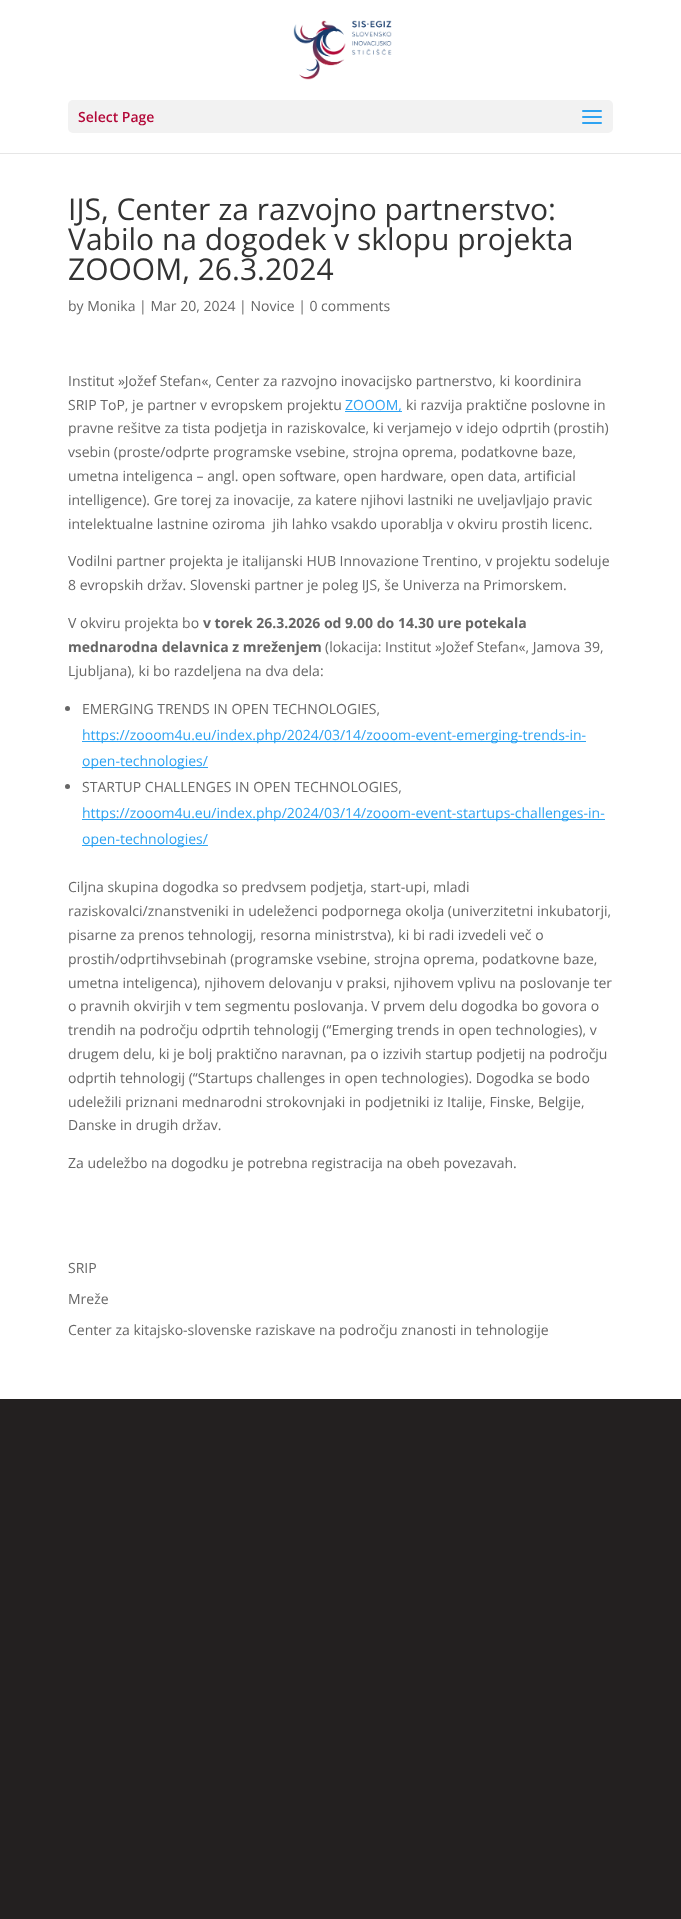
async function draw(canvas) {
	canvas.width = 681;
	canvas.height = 1919;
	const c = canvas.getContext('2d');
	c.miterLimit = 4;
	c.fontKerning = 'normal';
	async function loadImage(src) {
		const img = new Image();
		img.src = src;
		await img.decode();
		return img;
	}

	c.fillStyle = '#fff';
	c.fillRect(0, 0, 681, 1919);
	c.fillStyle = '#e6e6e6';
	c.fillRect(0, 153, 681, 1);
	c.drawImage(await loadImage('img1.png'), 293, 20, 99, 60);
	c.fillStyle = '#f2f2f2';
	c.beginPath();
	c.roundRect(68, 100, 545, 33, 5);
	c.fill();
	c.font = '600 14px Open Sans';
	c.fillStyle = '#b30838';
	c.fillText('Select Page', 78, 122);
	c.drawImage(await loadImage('img2.png'), 582, 110, 20, 14);
	c.font = '30px Open Sans';
	c.fillStyle = '#333';
	for (const [text, x, y] of [
		['IJS, Center za razvojno partnerstvo:', 68, 220],
		['Vabilo na dogodek v sklopu projekta', 68, 250],
		['ZOOOM, 26.3.2024', 68, 280],
	]) {
		c.fillText(text, x, y);
	}
	c.font = '14px Open Sans';
	c.fillStyle = '#666';
	for (const [text, x, y] of [
		['by Monika | Mar 20, 2024 | Novice | 0 comments', 68, 311],
		['Institut »Jožef Stefan«, Center za razvojno inovacijsko partnerstvo, ki koordinira', 68, 386],
		['SRIP ToP, je partner v evropskem projektu', 68, 410],
	]) {
		c.fillText(text, x, y);
	}
	c.fillStyle = '#2ea3f2';
	c.fillRect(345, 411, 57, 1);
	c.fillText('ZOOOM,', 345, 410);
	c.fillStyle = '#666';
	for (const [text, x, y] of [
		['ki razvija praktične poslovne in', 406, 410],
		['pravne rešitve za tista podjetja in raziskovalce, ki verjamejo v idejo odprtih (prostih)', 68, 433],
		['vsebin (proste/odprte programske vsebine, strojna oprema, podatkovne baze,', 68, 457],
		['umetna inteligenca – angl. open software, open hardware, open data, artificial', 68, 481],
		['intelligence). Gre torej za inovacije, za katere njihovi lastniki ne uveljavljajo pravic', 68, 505],
		['intelektualne lastnine oziroma  jih lahko vsakdo uporablja v okviru prostih licenc.', 68, 529],
		['Vodilni partner projekta je italijanski HUB Innovazione Trentino, v projektu sodeluje', 68, 566],
		['8 evropskih držav. Slovenski partner je poleg IJS, še Univerza na Primorskem.', 68, 590],
		['V okviru projekta bo', 68, 628],
	]) {
		c.fillText(text, x, y);
	}
	c.font = 'bold 14px Open Sans';
	c.fillText('v torek 26.3.2026 od 9.00 do 14.30 ure potekala', 203, 628);
	c.fillText('mednarodna delavnica z mreženjem', 68, 652);
	c.font = '14px Open Sans';
	c.fillText('(lokacija: Institut »Jožef Stefan«, Jamova 39,', 325, 652);
	c.fillText('Ljubljana), ki bo razdeljena na dva dela:', 68, 676);
	c.beginPath();
	c.arc(67.5, 708.5, 2.5, 0, 2 * Math.PI);
	c.fill();
	c.fillText('EMERGING TRENDS IN OPEN TECHNOLOGIES,', 82, 714);
	c.fillStyle = '#2ea3f2';
	c.fillRect(82, 741, 504, 1);
	c.fillText('https://zooom4u.eu/index.php/2024/03/14/zooom-event-emerging-trends-in-', 82, 740);
	c.fillRect(82, 767, 126, 1);
	c.fillText('open-technologies/', 82, 766);
	c.fillStyle = '#666';
	c.beginPath();
	c.arc(67.5, 786.5, 2.5, 0, 2 * Math.PI);
	c.fill();
	c.fillText('STARTUP CHALLENGES IN OPEN TECHNOLOGIES,', 82, 792);
	c.fillStyle = '#2ea3f2';
	c.fillRect(82, 819, 523, 1);
	c.fillText('https://zooom4u.eu/index.php/2024/03/14/zooom-event-startups-challenges-in-', 82, 818);
	c.fillRect(82, 845, 126, 1);
	c.fillText('open-technologies/', 82, 844);
	c.fillStyle = '#666';
	for (const [text, x, y] of [
		['Ciljna skupina dogodka so predvsem podjetja, start-upi, mladi', 68, 892],
		['raziskovalci/znanstveniki in udeleženci podpornega okolja (univerzitetni inkubatorji,', 68, 916],
		['pisarne za prenos tehnologij, resorna ministrstva), ki bi radi izvedeli več o', 68, 940],
		['prostih/odprtihvsebinah (programske vsebine, strojna oprema, podatkovne baze,', 68, 964],
		['umetna inteligenca), njihovem delovanju v praksi, njihovem vplivu na poslovanje ter', 68, 988],
		['o pravnih okvirjih v tem segmentu poslovanja. V prvem delu dogodka bo govora o', 68, 1011],
		['trendih na področju odprtih tehnologij (“Emerging trends in open technologies), v', 68, 1035],
		['drugem delu, ki je bolj praktično naravnan, pa o izzivih startup podjetij na področju', 68, 1059],
		['odprtih tehnologij (“Startups challenges in open technologies). Dogodka se bodo', 68, 1083],
		['udeležili priznani mednarodni strokovnjaki in podjetniki iz Italije, Finske, Belgije,', 68, 1107],
		['Danske in drugih držav.', 68, 1130],
		['Za udeležbo na dogodku je potrebna registracija na obeh povezavah.', 68, 1168],
		['SRIP', 68, 1273],
		['Mreže', 68, 1304],
		['Center za kitajsko-slovenske raziskave na področju znanosti in tehnologije', 68, 1335],
	]) {
		c.fillText(text, x, y);
	}
	c.fillStyle = '#232020';
	c.fillRect(0, 1399, 681, 520);
}

draw(document.querySelector('canvas'));
